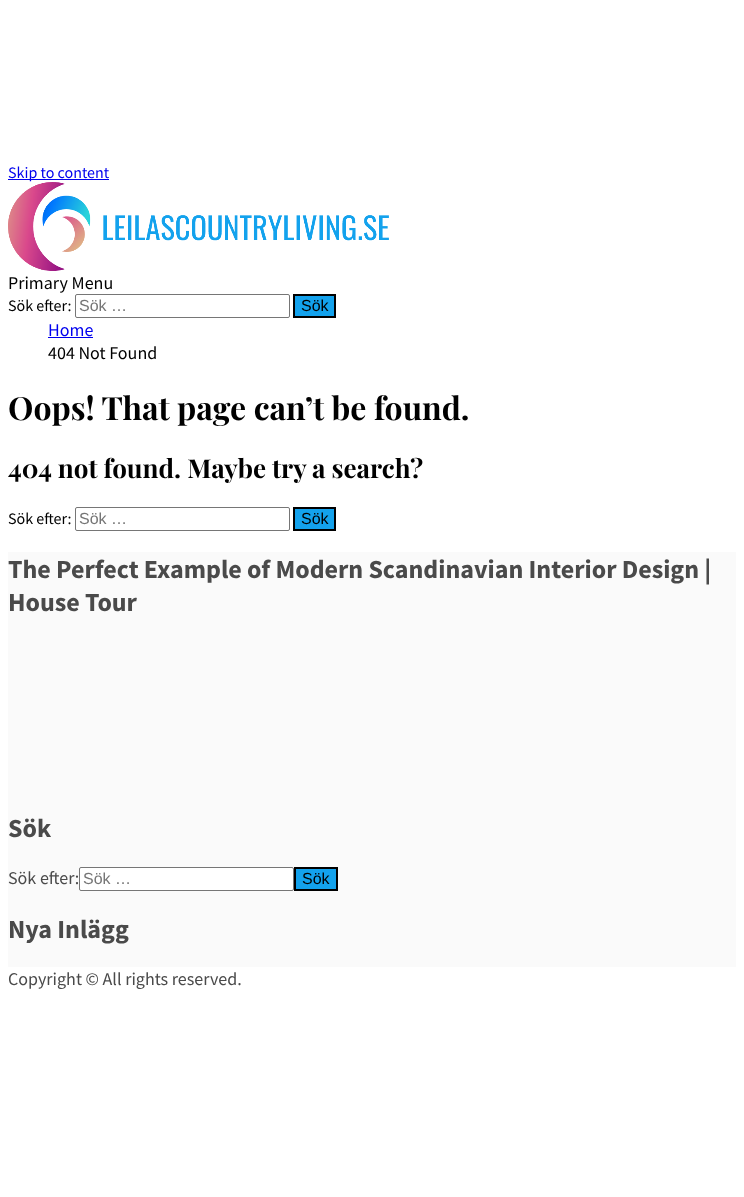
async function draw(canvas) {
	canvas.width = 744;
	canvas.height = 1197;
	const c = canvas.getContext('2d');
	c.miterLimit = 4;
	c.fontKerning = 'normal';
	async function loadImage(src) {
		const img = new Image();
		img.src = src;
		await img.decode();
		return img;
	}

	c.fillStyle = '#fff';
	c.fillRect(0, 0, 744, 1197);
	c.fillStyle = '#00e';
	c.fillRect(8, 179, 101, 1);
	c.font = '16px Source Sans Pro';
	c.fillText('Skip to content', 8, 178);
	c.drawImage(await loadImage('img1.png'), 8, 182, 381, 89);
	c.font = '18px Source Sans Pro';
	c.fillStyle = '#000';
	c.fillText('Primary Menu', 8, 289);
	c.font = '16px Source Sans Pro';
	c.fillText('Sök efter:', 8, 311);
	c.beginPath();
	c.roundRect(75.5, 294.5, 214, 23, 1.5);
	c.strokeStyle = '#767676';
	c.stroke();
	c.font = '16px Liberation Sans';
	c.fillStyle = '#757575';
	c.fillText('Sök …', 79, 311);
	c.fillStyle = '#13a2ed';
	c.beginPath();
	c.rect(294, 295, 41, 22);
	c.fill();
	c.strokeStyle = '#000';
	c.lineWidth = 2;
	c.stroke();
	c.fillStyle = '#000';
	c.fillText('Sök', 301, 311);
	c.font = '18px Source Sans Pro';
	c.fillStyle = '#00e';
	c.fillText('Home', 48, 336);
	c.fillRect(48, 337, 45, 1);
	c.fillStyle = '#000';
	c.fillText('404 Not Found', 48, 359);
	c.font = 'bold 32px Playfair Display';
	c.fillText('Oops! That page can’t be found.', 8, 420);
	c.font = 'bold 26px Playfair Display';
	c.fillText('404 not found. Maybe try a search?', 8, 478);
	c.font = '16px Source Sans Pro';
	c.fillText('Sök efter:', 8, 524);
	c.beginPath();
	c.roundRect(75.5, 507.5, 214, 23, 1.5);
	c.strokeStyle = '#767676';
	c.lineWidth = 1;
	c.stroke();
	c.font = '16px Liberation Sans';
	c.fillStyle = '#757575';
	c.fillText('Sök …', 79, 524);
	c.fillStyle = '#13a2ed';
	c.beginPath();
	c.rect(294, 508, 41, 22);
	c.fill();
	c.strokeStyle = '#000';
	c.lineWidth = 2;
	c.stroke();
	c.fillStyle = '#000';
	c.fillText('Sök', 301, 524);
	c.fillStyle = '#fafafa';
	c.fillRect(8, 552, 728, 415);
	c.font = 'bold 26px Source Sans Pro';
	c.fillStyle = '#4a4a4a';
	for (const [text, x, y] of [
		['The Perfect Example of Modern Scandinavian Interior Design |', 8, 578],
		['House Tour', 8, 611],
		['Sök', 8, 837],
	]) {
		c.fillText(text, x, y);
	}
	c.font = '18px Source Sans Pro';
	c.fillText('Sök efter:', 8, 884);
	c.fillStyle = '#fff';
	c.beginPath();
	c.roundRect(79.5, 867.5, 214, 23, 1.5);
	c.fill();
	c.strokeStyle = '#767676';
	c.lineWidth = 1;
	c.stroke();
	c.font = '16px Liberation Sans';
	c.fillStyle = '#757575';
	c.fillText('Sök …', 83, 884);
	c.fillStyle = '#13a2ed';
	c.beginPath();
	c.rect(295, 868, 42, 22);
	c.fill();
	c.strokeStyle = '#000';
	c.lineWidth = 2;
	c.stroke();
	c.fillStyle = '#000';
	c.fillText('Sök', 302, 884);
	c.font = 'bold 26px Source Sans Pro';
	c.fillStyle = '#4a4a4a';
	c.fillText('Nya Inlägg', 8, 938);
	c.font = '18px Source Sans Pro';
	c.fillText('Copyright © All rights reserved.', 8, 985);
}

draw(document.querySelector('canvas'));
